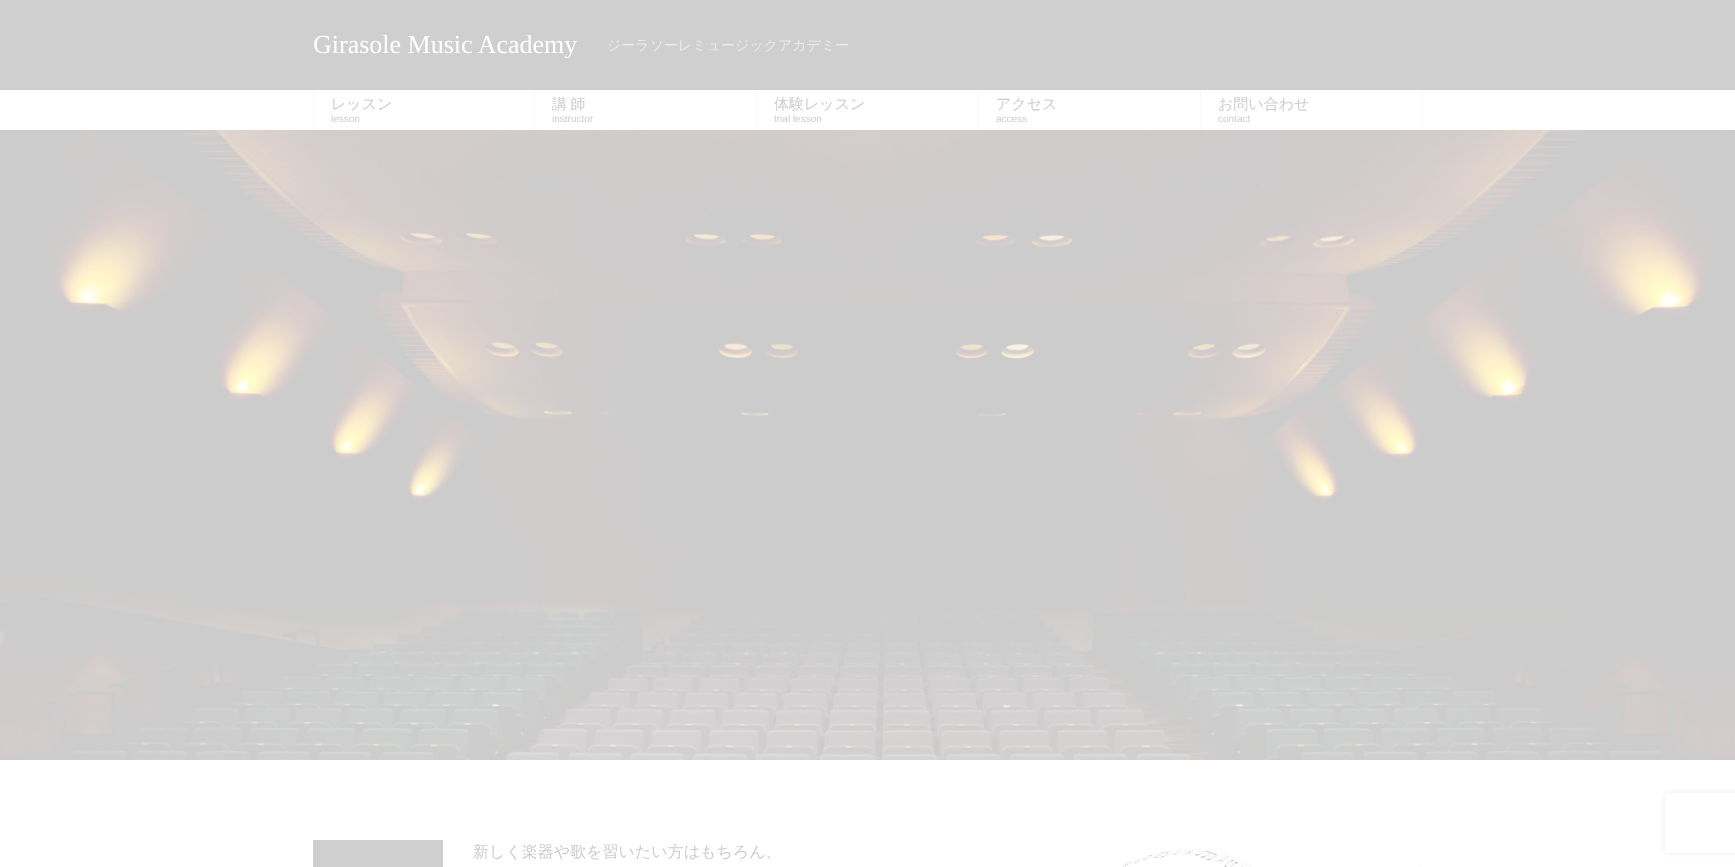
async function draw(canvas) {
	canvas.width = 1735;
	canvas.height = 867;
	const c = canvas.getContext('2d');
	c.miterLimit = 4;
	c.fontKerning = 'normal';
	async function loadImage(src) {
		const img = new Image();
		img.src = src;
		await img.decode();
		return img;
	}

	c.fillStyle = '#fff';
	c.fillRect(0, 0, 1735, 867);
	c.fillStyle = '#cfcfcf';
	c.fillRect(0, 0, 1735, 90);
	c.save();
	c.beginPath();
	c.rect(313, 32, 264, 26);
	c.clip();
	c.font = '26px Liberation Serif';
	c.fillStyle = '#fff';
	c.fillText('Girasole Music Academy', 313, 53);
	c.restore();
	c.font = '500 14px WenQuanYi Zen Hei';
	c.fillStyle = '#ebebeb';
	c.fillText('ジーラソーレミュージックアカデミー', 607, 50);
	c.fillStyle = '#f8f8f8';
	c.fillRect(534, 90, 1, 40);
	c.fillRect(313, 90, 1, 40);
	c.font = '500 15px WenQuanYi Zen Hei';
	c.fillStyle = '#ccc';
	c.fillText('レッスン', 331, 109);
	c.font = '10px Liberation Sans';
	c.fillText('lesson', 331, 122);
	c.fillStyle = '#f8f8f8';
	c.fillRect(756, 90, 1, 40);
	c.wordSpacing = '-1px';
	c.font = '500 15px WenQuanYi Zen Hei';
	c.fillStyle = '#ccc';
	c.fillText('講 師', 552, 109);
	c.wordSpacing = '0px';
	c.font = '10px Liberation Sans';
	c.fillText('instructor', 552, 122);
	c.fillStyle = '#f8f8f8';
	c.fillRect(978, 90, 1, 40);
	c.font = '500 15px WenQuanYi Zen Hei';
	c.fillStyle = '#ccc';
	c.fillText('体験レッスン', 774, 109);
	c.font = '10px Liberation Sans';
	c.fillText('trial lesson', 774, 122);
	c.fillStyle = '#f8f8f8';
	c.fillRect(1200, 90, 1, 40);
	c.font = '500 15px WenQuanYi Zen Hei';
	c.fillStyle = '#ccc';
	c.fillText('アクセス', 996, 109);
	c.font = '10px Liberation Sans';
	c.fillText('access', 996, 122);
	c.fillStyle = '#f8f8f8';
	c.fillRect(1422, 90, 1, 40);
	c.font = '500 15px WenQuanYi Zen Hei';
	c.fillStyle = '#ccc';
	c.fillText('お問い合わせ', 1218, 109);
	c.font = '10px Liberation Sans';
	c.fillText('contact', 1218, 122);
	c.drawImage(await loadImage('img1.png'), 0, 130, 1735, 630);
	c.fillStyle = '#cfcfcf';
	c.fillRect(313, 840, 130, 27);
	c.font = '500 16px WenQuanYi Zen Hei';
	c.fillStyle = '#ccc';
	c.fillText('新しく楽器や歌を習いたい方はもちろん、', 473, 857);
	c.drawImage(await loadImage('img2.png'), 1123, 849, 300, 18);
	c.save();
	c.beginPath();
	c.moveTo(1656, 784);
	c.lineTo(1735, 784);
	c.lineTo(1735, 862);
	c.lineTo(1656, 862);
	c.closePath();
	c.moveTo(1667, 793);
	c.lineTo(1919, 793);
	c.bezierCurveTo(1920, 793, 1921, 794, 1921, 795);
	c.lineTo(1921, 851);
	c.bezierCurveTo(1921, 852, 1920, 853, 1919, 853);
	c.lineTo(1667, 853);
	c.bezierCurveTo(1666, 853, 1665, 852, 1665, 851);
	c.lineTo(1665, 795);
	c.bezierCurveTo(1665, 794, 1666, 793, 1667, 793);
	c.closePath();
	c.clip('evenodd');
	c.fillStyle = '#e6e6e6';
	c.filter = 'blur(2.5px)';
	c.beginPath();
	c.roundRect(1665, 793, 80, 60, 2);
	c.fill();
	c.filter = 'none';
	c.restore();
}

draw(document.querySelector('canvas'));
